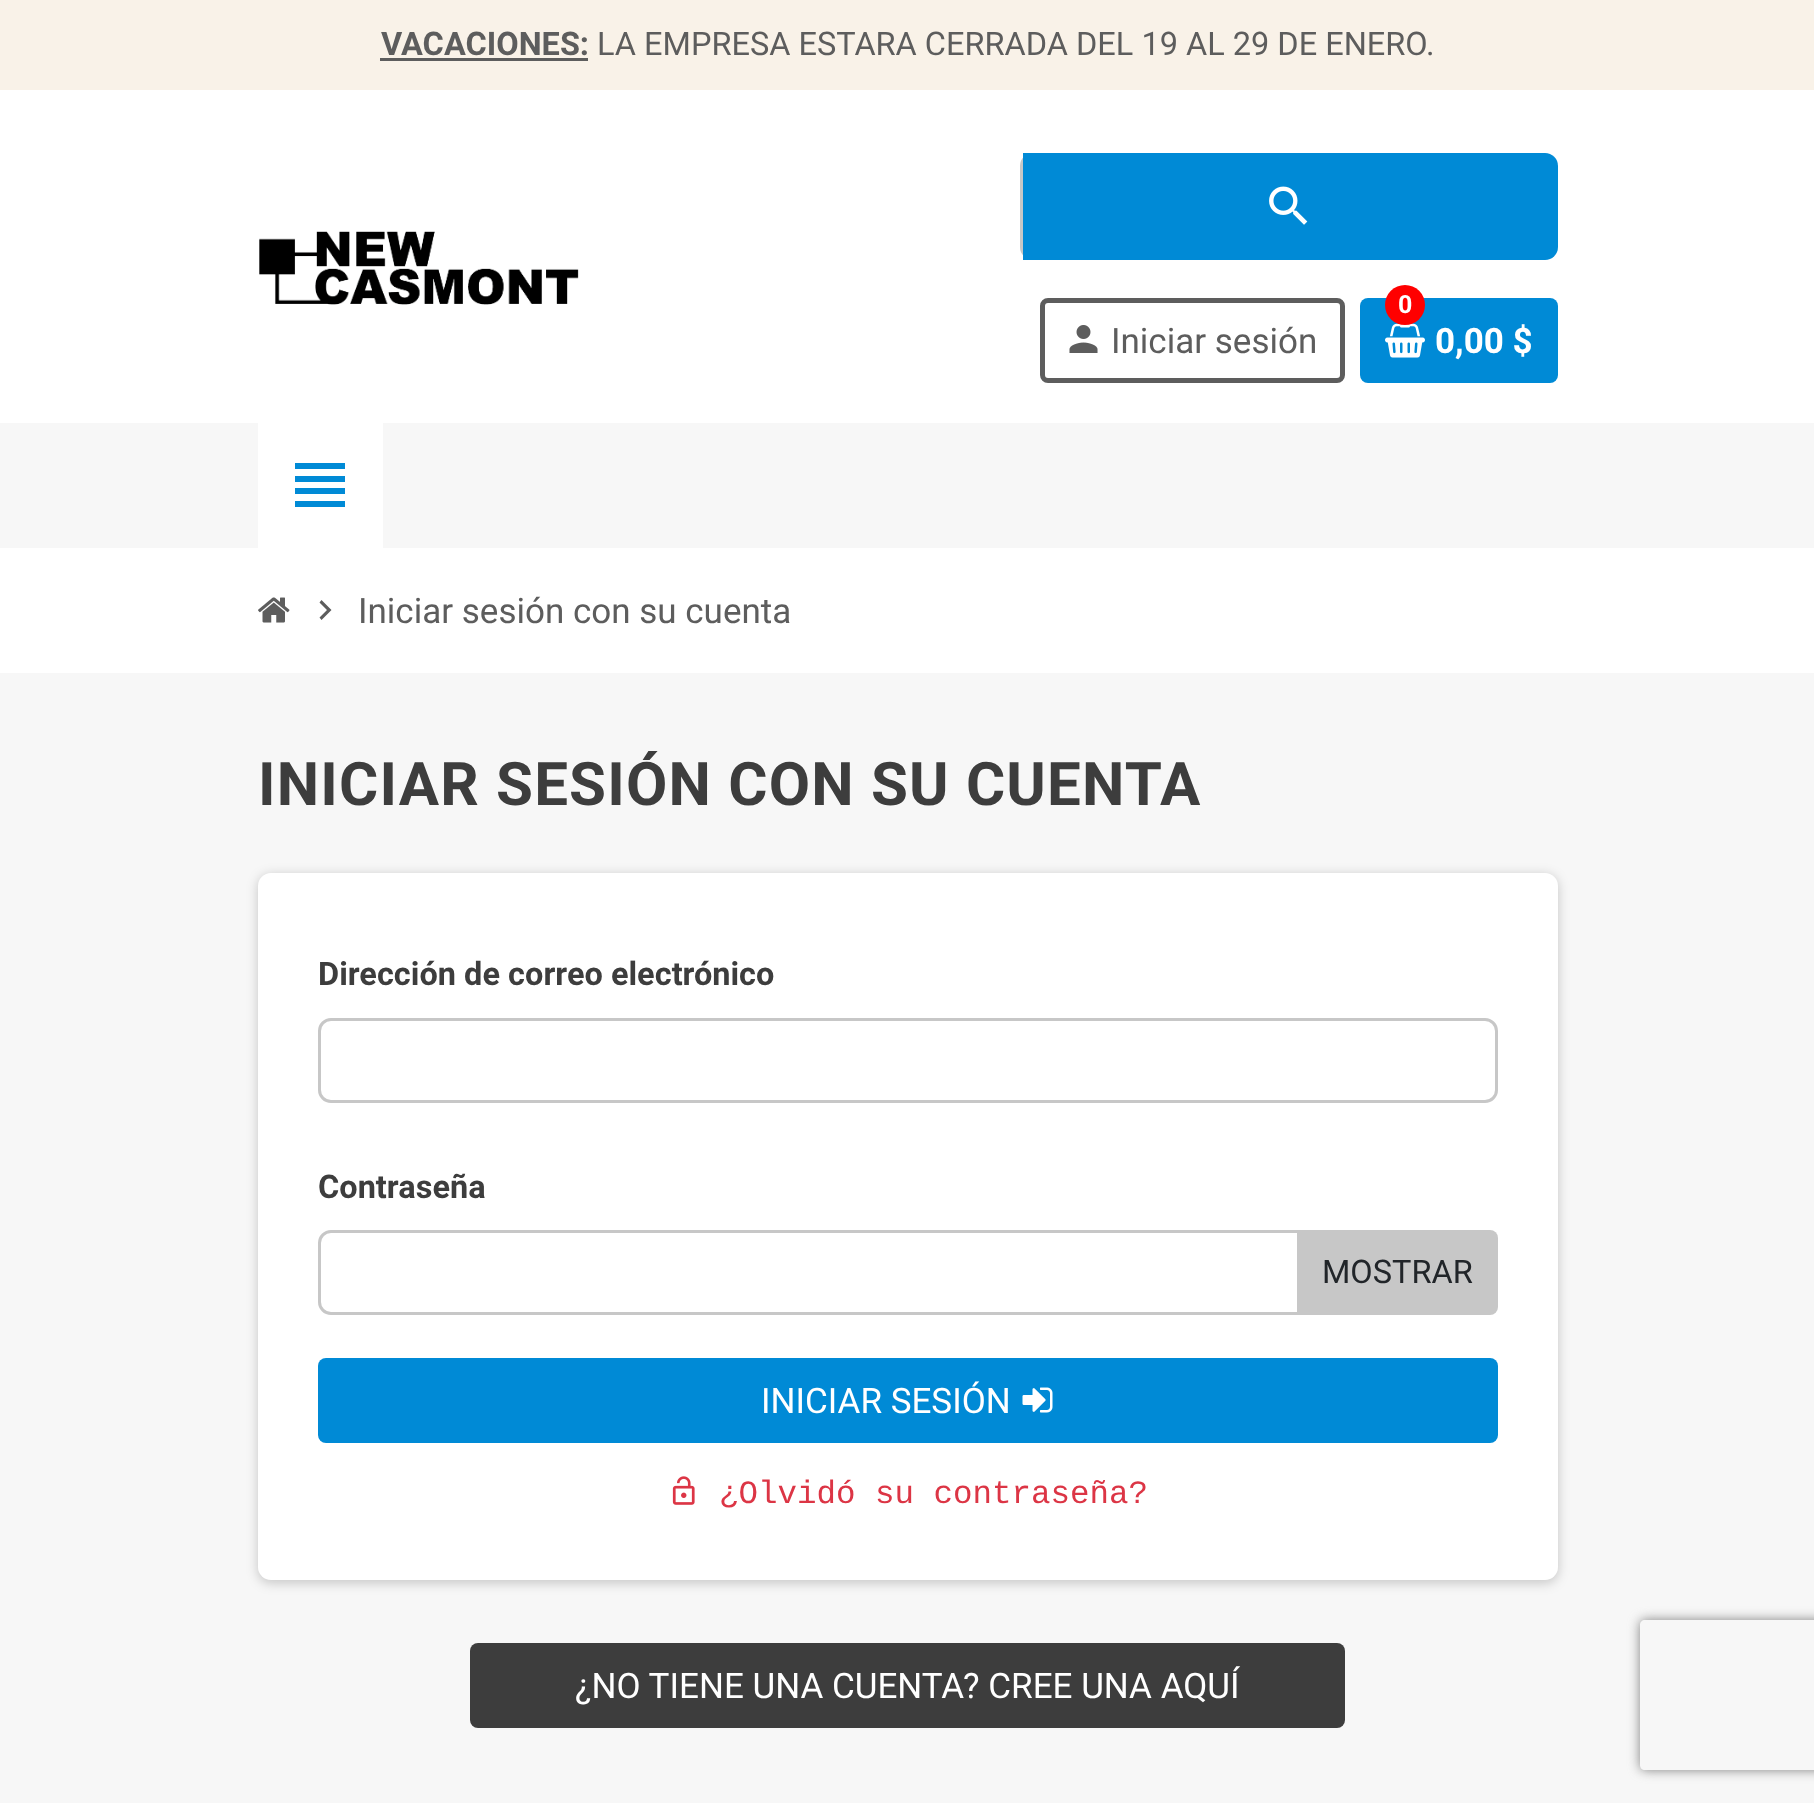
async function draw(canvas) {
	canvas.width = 1814;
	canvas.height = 1803;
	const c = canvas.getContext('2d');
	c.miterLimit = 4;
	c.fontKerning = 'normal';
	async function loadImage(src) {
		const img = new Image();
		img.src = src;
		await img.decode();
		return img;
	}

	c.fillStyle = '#fff';
	c.fillRect(0, 0, 1814, 1803);
	c.fillStyle = '#f9f2e8';
	c.fillRect(0, 0, 1814, 90);
	c.font = 'bold 32.5px Roboto';
	c.fillStyle = '#5d5d5d';
	c.fillText('VACACIONES:', 381, 55);
	c.fillRect(380, 58, 208, 3);
	c.font = '32.5px Roboto';
	c.fillText('LA EMPRESA ESTARA CERRADA DEL 19 AL 29 DE ENERO.', 597, 55);
	c.drawImage(await loadImage('img1.png'), 259, 231, 320, 74);
	c.beginPath();
	c.roundRect(1021.5, 154.5, 532, 104, 11.5);
	c.strokeStyle = '#c7c7c7';
	c.lineWidth = 3;
	c.stroke();
	c.fillStyle = '#008ad6';
	c.beginPath();
	c.roundRect(1023, 153, 535, 107, [0, 13, 13, 0]);
	c.fill();
	c.drawImage(await loadImage('img2.png'), 1269, 186, 39, 39);
	c.beginPath();
	c.roundRect(1042.5, 300.5, 300, 80, 5.5);
	c.strokeStyle = '#5d5d5d';
	c.lineWidth = 5;
	c.stroke();
	c.drawImage(await loadImage('img3.png'), 1069, 325, 29, 28);
	c.font = '35px Roboto';
	c.fillStyle = '#5d5d5d';
	c.fillText('Iniciar sesión', 1111, 353);
	c.fillStyle = '#008ad6';
	c.beginPath();
	c.roundRect(1360, 298, 198, 85, 8);
	c.fill();
	c.drawImage(await loadImage('img4.png'), 1385, 323, 40, 35);
	c.fillStyle = '#f00';
	c.beginPath();
	c.arc(1405, 305, 20, 0, 2 * Math.PI);
	c.fill();
	c.font = 'bold 25px Roboto';
	c.fillStyle = '#fff';
	c.fillText('0', 1398, 313);
	c.font = 'bold 35px Roboto';
	c.fillText('0,00 $', 1435, 353);
	c.fillStyle = '#f7f7f7';
	c.fillRect(0, 423, 1814, 125);
	c.fillStyle = '#fff';
	c.fillRect(258, 423, 125, 125);
	c.fillStyle = '#008ad6';
	c.beginPath();
	c.moveTo(295, 463);
	c.lineTo(345, 463);
	c.lineTo(345, 469);
	c.lineTo(295, 469);
	c.closePath();
	c.moveTo(295, 482);
	c.lineTo(295, 476);
	c.lineTo(345, 476);
	c.lineTo(345, 482);
	c.closePath();
	c.moveTo(295, 507);
	c.lineTo(295, 501);
	c.lineTo(345, 501);
	c.lineTo(345, 507);
	c.closePath();
	c.moveTo(295, 494);
	c.lineTo(295, 488);
	c.lineTo(345, 488);
	c.lineTo(345, 494);
	c.closePath();
	c.fill();
	c.fillStyle = '#f7f7f7';
	c.fillRect(0, 673, 1814, 1130);
	c.drawImage(await loadImage('img5.png'), 258, 597, 32, 26);
	c.fillStyle = '#5d5d5d';
	c.beginPath();
	c.moveTo(321.5, 600);
	c.lineTo(331.5, 610);
	c.lineTo(321.5, 620);
	c.lineTo(319.5, 617.5);
	c.lineTo(327, 610);
	c.lineTo(319.5, 602.5);
	c.closePath();
	c.fill();
	c.font = '35px Roboto';
	c.fillText('Iniciar sesión con su cuenta', 358, 623);
	c.letterSpacing = '1.2px';
	c.font = 'bold 60px "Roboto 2"';
	c.fillStyle = '#3d3d3d';
	c.fillText('INICIAR SESIÓN CON SU CUENTA', 258, 805);
	c.fillStyle = '#00000033';
	c.filter = 'blur(6px)';
	c.beginPath();
	c.roundRect(258, 875, 1300, 708, 13);
	c.fill();
	c.filter = 'none';
	c.fillStyle = '#fff';
	c.beginPath();
	c.roundRect(258, 873, 1300, 707, 13);
	c.fill();
	c.letterSpacing = '0px';
	c.font = 'bold 32.5px Roboto';
	c.fillStyle = '#3d3d3d';
	c.fillText('Dirección de correo electrónico', 318, 985);
	c.beginPath();
	c.roundRect(319.5, 1019.5, 1177, 82, 11.5);
	c.strokeStyle = '#c7c7c7';
	c.lineWidth = 3;
	c.stroke();
	c.fillText('Contraseña', 318, 1198);
	c.beginPath();
	c.roundRect(319.5, 1231.5, 979, 82, [11.5, 0, 0, 11.5]);
	c.stroke();
	c.fillStyle = '#c7c7c7';
	c.beginPath();
	c.roundRect(1298, 1230, 200, 85, [0, 8, 8, 0]);
	c.fill();
	c.font = '32.5px Roboto';
	c.fillStyle = '#212529';
	c.fillText('MOSTRAR', 1322, 1283);
	c.fillStyle = '#008ad6';
	c.beginPath();
	c.roundRect(318, 1358, 1180, 85, 8);
	c.fill();
	c.font = '35px Roboto';
	c.fillStyle = '#fff';
	c.fillText('INICIAR SESIÓN', 761, 1413);
	c.drawImage(await loadImage('img6.png'), 1022, 1387, 31, 26);
	c.drawImage(await loadImage('img7.png'), 672, 1476, 23, 29);
	c.font = '32.5px Liberation Mono';
	c.fillStyle = '#dc3545';
	c.fillText('¿Olvidó su contraseña?', 719, 1503);
	c.fillStyle = '#3d3d3d';
	c.beginPath();
	c.roundRect(470, 1643, 875, 85, 8);
	c.fill();
	c.font = '35px Roboto';
	c.fillStyle = '#fff';
	c.fillText('¿NO TIENE UNA CUENTA? CREE UNA AQUÍ', 575, 1698);
	c.save();
	c.beginPath();
	c.moveTo(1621, 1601);
	c.lineTo(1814, 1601);
	c.lineTo(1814, 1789);
	c.lineTo(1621, 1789);
	c.closePath();
	c.moveTo(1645, 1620);
	c.lineTo(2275, 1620);
	c.bezierCurveTo(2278, 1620, 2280, 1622, 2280, 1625);
	c.lineTo(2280, 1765);
	c.bezierCurveTo(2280, 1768, 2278, 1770, 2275, 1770);
	c.lineTo(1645, 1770);
	c.bezierCurveTo(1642, 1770, 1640, 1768, 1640, 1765);
	c.lineTo(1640, 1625);
	c.bezierCurveTo(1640, 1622, 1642, 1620, 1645, 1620);
	c.closePath();
	c.clip('evenodd');
	c.fillStyle = '#808080';
	c.filter = 'blur(6px)';
	c.beginPath();
	c.roundRect(1640, 1620, 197, 150, 5);
	c.fill();
	c.filter = 'none';
	c.restore();
}

draw(document.querySelector('canvas'));
